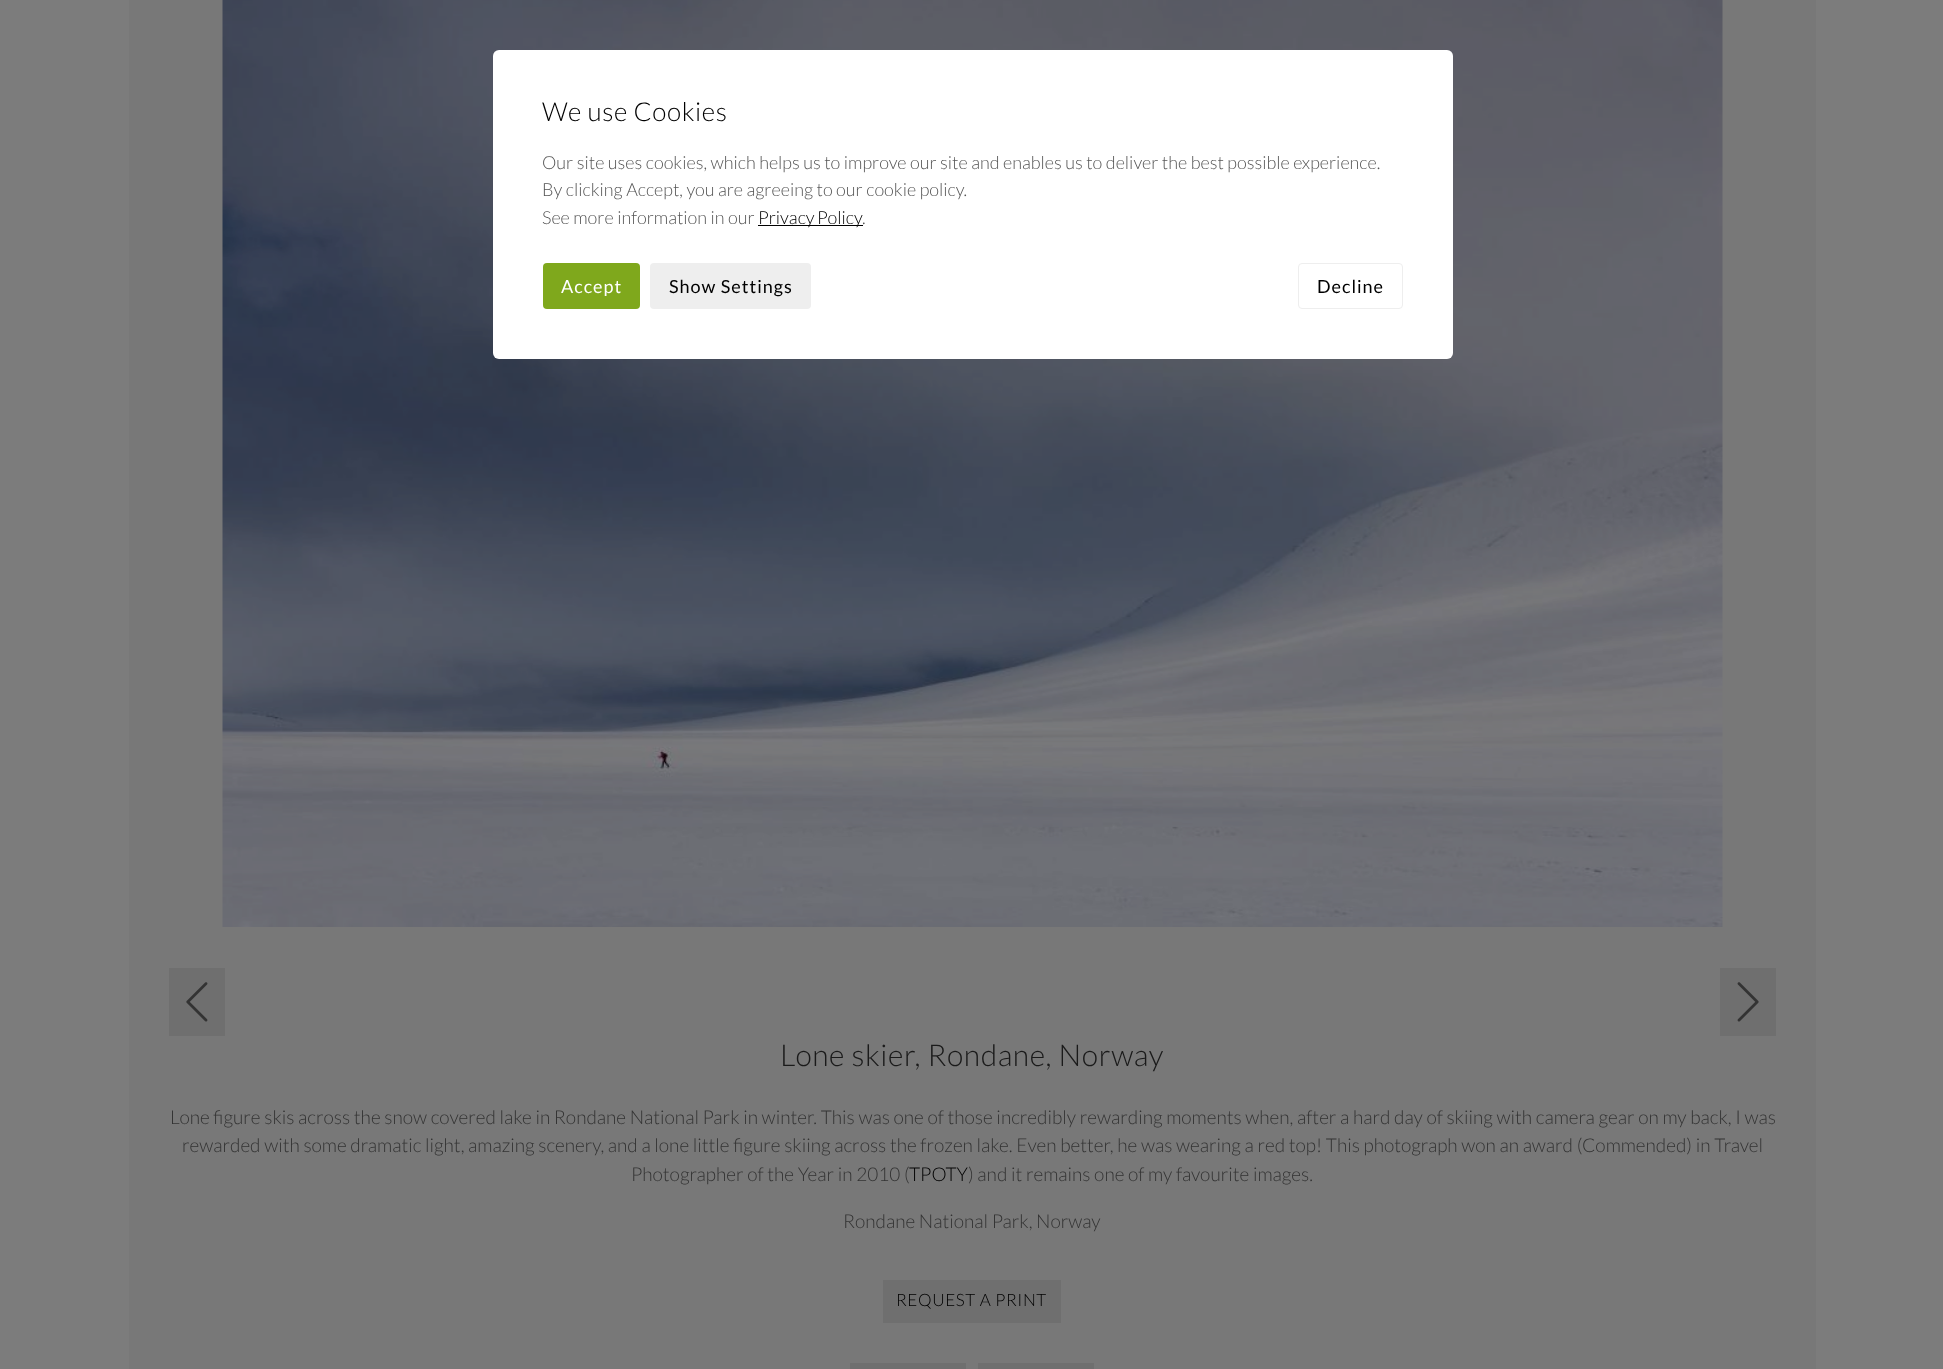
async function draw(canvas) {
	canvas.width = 1943;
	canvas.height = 1369;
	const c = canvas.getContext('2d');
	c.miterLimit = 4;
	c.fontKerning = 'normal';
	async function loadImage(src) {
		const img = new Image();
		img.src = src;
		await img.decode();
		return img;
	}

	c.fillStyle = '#7c7c7c';
	c.fillRect(0, 0, 1943, 1369);
	c.fillStyle = '#787878';
	c.fillRect(129, 0, 1687, 1369);
	c.drawImage(await loadImage('img1.png'), 222, 0, 1501, 927);
	c.fillStyle = '#fff';
	c.beginPath();
	c.roundRect(493, 50, 960, 309, 6);
	c.fill();
	c.letterSpacing = '0.6px';
	c.font = '300 26px Lato';
	c.fillStyle = '#000';
	c.fillText('We use Cookies', 542, 121);
	c.letterSpacing = '0px';
	c.font = '300 18px Lato';
	c.fillStyle = '#555';
	for (const [text, x, y] of [
		['Our site uses cookies, which helps us to improve our site and enables us to deliver the best possible experience.', 542, 169],
		['By clicking Accept, you are agreeing to our cookie policy.', 542, 196],
		['See more information in our', 542, 224],
	]) {
		c.fillText(text, x, y);
	}
	c.fillStyle = '#000';
	c.fillRect(758, 225, 105, 1);
	c.wordSpacing = '-1px';
	c.fillText('Privacy Policy', 758, 224);
	c.wordSpacing = '0px';
	c.fillStyle = '#555';
	c.fillText('.', 862, 224);
	c.fillStyle = '#7fa81c';
	c.beginPath();
	c.roundRect(543, 263, 97, 46, 4);
	c.fill();
	c.letterSpacing = '1px';
	c.font = '18px Lato';
	c.fillStyle = '#fff';
	c.fillText('Accept', 561, 293);
	c.fillStyle = '#eee';
	c.beginPath();
	c.roundRect(650, 263, 161, 46, 4);
	c.fill();
	c.fillStyle = '#000';
	c.fillText('Show Settings', 669, 293);
	c.beginPath();
	c.roundRect(1298.5, 263.5, 104, 45, 3.5);
	c.strokeStyle = '#eee';
	c.stroke();
	c.fillText('Decline', 1317, 293);
	c.fillStyle = '#6f6f6f';
	c.fillRect(169, 968, 56, 68);
	c.drawImage(await loadImage('img2.png'), 186, 982, 22, 40);
	c.fillRect(1720, 968, 56, 68);
	c.drawImage(await loadImage('img3.png'), 1737, 982, 22, 40);
	c.letterSpacing = '0.6px';
	c.font = '300 30px Lato';
	c.fillStyle = '#1a1a1a';
	c.fillText('Lone skier, Rondane, Norway', 780, 1066);
	c.letterSpacing = '0px';
	c.font = '300 19px Lato';
	c.fillStyle = '#333';
	for (const [text, x, y] of [
		['Lone figure skis across the snow covered lake in Rondane National Park in winter. This was one of those incredibly rewarding moments when, after a hard day of skiing with camera gear on my back, I was', 170, 1124],
		['rewarded with some dramatic light, amazing scenery, and a lone little figure skiing across the frozen lake. Even better, he was wearing a red top! This photograph won an award (Commended) in Travel', 182, 1152],
		['Photographer of the Year in 2010 (', 631, 1181],
	]) {
		c.fillText(text, x, y);
	}
	c.fillStyle = '#000';
	c.fillText('TPOTY', 909, 1181);
	c.fillStyle = '#333';
	c.fillText(') and it remains one of my favourite images.', 968, 1181);
	c.fillText('Rondane National Park, Norway', 843, 1228);
	c.fillStyle = '#6f6f6f';
	c.fillRect(883, 1280, 178, 43);
	c.letterSpacing = '0.6px';
	c.font = '300 17px Lato';
	c.fillStyle = '#000';
	c.fillText('REQUEST A PRINT', 896, 1306);
	c.fillStyle = '#6f6f6f';
	c.fillRect(850, 1363, 116, 6);
	c.fillRect(978, 1363, 116, 6);
}

draw(document.querySelector('canvas'));
